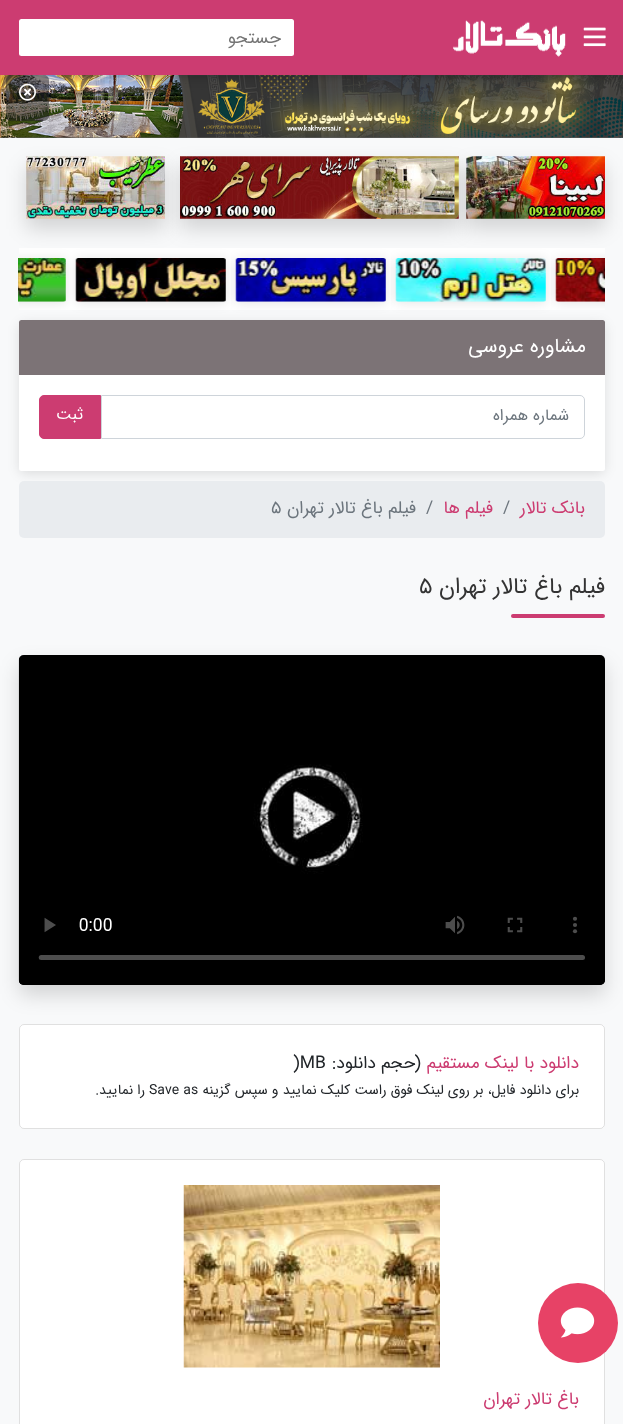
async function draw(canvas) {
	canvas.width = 623;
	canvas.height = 1424;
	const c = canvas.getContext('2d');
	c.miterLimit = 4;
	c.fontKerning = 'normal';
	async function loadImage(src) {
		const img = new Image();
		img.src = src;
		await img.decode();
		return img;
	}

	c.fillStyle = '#f8f9fa';
	c.fillRect(0, 0, 623, 1424);
	c.fillStyle = '#00000026';
	c.filter = 'blur(10px)';
	c.beginPath();
	c.rect(466, 166, 139, 63);
	c.fill();
	c.filter = 'none';
	c.drawImage(await loadImage('img5.png'), 466, 156, 139, 63);
	c.filter = 'blur(10px)';
	c.beginPath();
	c.rect(180, 166, 279, 63);
	c.fill();
	c.filter = 'none';
	c.drawImage(await loadImage('img6.png'), 180, 156, 279, 63);
	c.filter = 'blur(10px)';
	c.beginPath();
	c.rect(26, 166, 139, 63);
	c.fill();
	c.filter = 'none';
	c.fillStyle = '#626363';
	c.fillRect(0, 137, 623, 1);
	c.drawImage(await loadImage('img3.png'), 0, 75, 623, 63);
	c.fillStyle = '#22222280';
	c.beginPath();
	c.roundRect(6, 75, 43, 46, 5);
	c.fill();
	c.drawImage(await loadImage('img4.png'), 19, 83, 17, 18);
	c.fillStyle = '#0000004d';
	c.filter = 'blur(6px)';
	c.beginPath();
	c.rect(0, 0, 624, 75);
	c.fill();
	c.filter = 'none';
	c.fillStyle = '#cc3c71';
	c.fillRect(0, 0, 623, 75);
	c.drawImage(await loadImage('img1.png'), 583, 27, 23, 20);
	c.drawImage(await loadImage('img2.png'), 453, 20, 113, 37);
	c.fillStyle = '#fff';
	c.beginPath();
	c.roundRect(19, 19, 275, 37, 2.5);
	c.fill();
	c.direction = 'rtl';
	c.font = '17.5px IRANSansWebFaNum';
	c.fillStyle = '#757575';
	c.fillText('جستجو', 281, 43);
	c.drawImage(await loadImage('img7.png'), 26, 156, 139, 63);
	c.fillStyle = '#0000001c';
	c.filter = 'blur(6px)';
	c.beginPath();
	c.roundRect(19, 323, 586, 151, 6);
	c.fill();
	c.filter = 'none';
	c.fillStyle = '#fff';
	c.fillRect(551, 248, 54, 62);
	c.fillStyle = '#7c7376';
	c.beginPath();
	c.roundRect(19, 320, 586, 55, [2.5, 2.5, 0, 0]);
	c.fill();
	c.save();
	c.beginPath();
	c.rect(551, 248, 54, 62);
	c.clip();
	c.fillStyle = '#0000001a';
	c.filter = 'blur(6px)';
	c.beginPath();
	c.roundRect(556, 259, 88, 44, 2.5);
	c.fill();
	c.filter = 'none';
	c.restore();
	c.drawImage(await loadImage('img8.png'), 555, 258, 50, 44);
	c.fillStyle = '#fff';
	c.fillRect(391, 248, 160, 62);
	c.fillStyle = '#0000001a';
	c.filter = 'blur(6px)';
	c.beginPath();
	c.roundRect(396, 259, 150, 44, 2.5);
	c.fill();
	c.filter = 'none';
	c.drawImage(await loadImage('img9.png'), 395, 258, 151, 44);
	c.fillStyle = '#fff';
	c.fillRect(231, 248, 160, 62);
	c.fillStyle = '#0000001a';
	c.filter = 'blur(6px)';
	c.beginPath();
	c.roundRect(236, 259, 150, 44, 2.5);
	c.fill();
	c.filter = 'none';
	c.drawImage(await loadImage('img10.png'), 235, 258, 151, 44);
	c.fillStyle = '#fff';
	c.fillRect(71, 248, 160, 62);
	c.fillStyle = '#0000001a';
	c.filter = 'blur(6px)';
	c.beginPath();
	c.roundRect(76, 259, 150, 44, 2.5);
	c.fill();
	c.filter = 'none';
	c.drawImage(await loadImage('img11.png'), 75, 258, 151, 44);
	c.fillStyle = '#fff';
	c.fillRect(19, 248, 52, 62);
	c.save();
	c.beginPath();
	c.rect(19, 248, 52, 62);
	c.clip();
	c.fillStyle = '#0000001a';
	c.filter = 'blur(6px)';
	c.beginPath();
	c.roundRect(-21, 259, 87, 44, 2.5);
	c.fill();
	c.filter = 'none';
	c.restore();
	c.drawImage(await loadImage('img12.png'), 18, 258, 48, 44);
	c.font = '20px IRANSansWebFaNum';
	c.fillText('مشاوره عروسی', 586, 352);
	c.beginPath();
	c.roundRect(19, 375, 586, 96, [0, 0, 2.5, 2.5]);
	c.fill();
	c.beginPath();
	c.roundRect(101.5, 395.5, 483, 43, [0, 4.5, 4.5, 0]);
	c.strokeStyle = '#ced4da';
	c.stroke();
	c.font = '16px IRANSansWebFaNum';
	c.fillStyle = '#6c757d';
	c.fillText('شماره همراه', 569, 420);
	c.fillStyle = '#cc3c71';
	c.beginPath();
	c.roundRect(39.5, 395.5, 61, 43, [4.5, 0, 0, 4.5]);
	c.fill();
	c.strokeStyle = '#cc3c71';
	c.stroke();
	c.fillStyle = '#fff';
	c.fillText('ثبت', 83, 419);
	c.fillStyle = '#e9ecef';
	c.beginPath();
	c.roundRect(19, 481, 586, 57, 5);
	c.fill();
	c.font = '17.5px IRANSansWebFaNum';
	c.fillStyle = '#cc3c71';
	c.fillText('بانک تالار', 585, 513);
	c.direction = 'ltr';
	c.fillStyle = '#6c757d';
	c.fillText('/', 503, 513);
	c.direction = 'rtl';
	c.fillStyle = '#cc3c71';
	c.fillText('فیلم ها', 493, 513);
	c.direction = 'ltr';
	c.fillStyle = '#6c757d';
	c.fillText('/', 426, 513);
	c.direction = 'rtl';
	c.fillText('فیلم باغ تالار تهران', 416, 513);
	c.direction = 'ltr';
	c.fillText('5', 271, 513);
	c.direction = 'rtl';
	c.font = '22.5px IRANSansWebFaNum';
	c.fillStyle = '#333';
	c.fillText('فیلم باغ تالار تهران', 605, 593);
	c.direction = 'ltr';
	c.fillText('5', 419, 593);
	c.fillStyle = '#cc3c71';
	c.beginPath();
	c.roundRect(511, 614, 94, 4, 2);
	c.fill();
	c.fillStyle = '#00000026';
	c.filter = 'blur(10px)';
	c.beginPath();
	c.roundRect(19, 665, 586, 330, 5);
	c.fill();
	c.filter = 'none';
	c.drawImage(await loadImage('img13.png'), 18, 655, 587, 330);
	c.fillStyle = '#fff';
	c.beginPath();
	c.roundRect(19, 1024, 586, 105, 5);
	c.fill();
	c.beginPath();
	c.roundRect(19.5, 1024.5, 585, 104, 4.5);
	c.strokeStyle = '#0000001f';
	c.stroke();
	c.direction = 'rtl';
	c.font = '17.5px IRANSansWebFaNum';
	c.fillStyle = '#cc3c71';
	c.fillText('دانلود با لینک مستقیم', 579, 1068);
	c.fillStyle = '#212529';
	c.fillText('(حجم دانلود:', 421, 1068);
	c.direction = 'ltr';
	c.fillText(')MB', 293, 1068);
	c.direction = 'rtl';
	c.font = '14px IRANSansWebFaNum';
	c.fillText('برای دانلود فایل، بر روی لینک فوق راست کلیک نمایید و سپس گزینه', 579, 1094);
	c.direction = 'ltr';
	c.fillText('Save as', 149, 1094);
	c.direction = 'rtl';
	c.fillText('را نمایید.', 145, 1094);
	c.fillStyle = '#fff';
	c.beginPath();
	c.roundRect(19, 1159, 586, 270, 5);
	c.fill();
	c.beginPath();
	c.roundRect(19.5, 1159.5, 585, 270, 4.5);
	c.stroke();
	c.drawImage(await loadImage('img14.png'), 183, 1185, 257, 183);
	c.font = '17.5px IRANSansWebFaNum';
	c.fillStyle = '#cc3c71';
	c.fillText('باغ تالار تهران', 579, 1404);
	c.fillStyle = '#e74266';
	c.beginPath();
	c.arc(578, 1323, 40, 0, 2 * Math.PI);
	c.fill();
	c.drawImage(await loadImage('img15.png'), 560, 1307, 35, 31);
}

draw(document.querySelector('canvas'));
